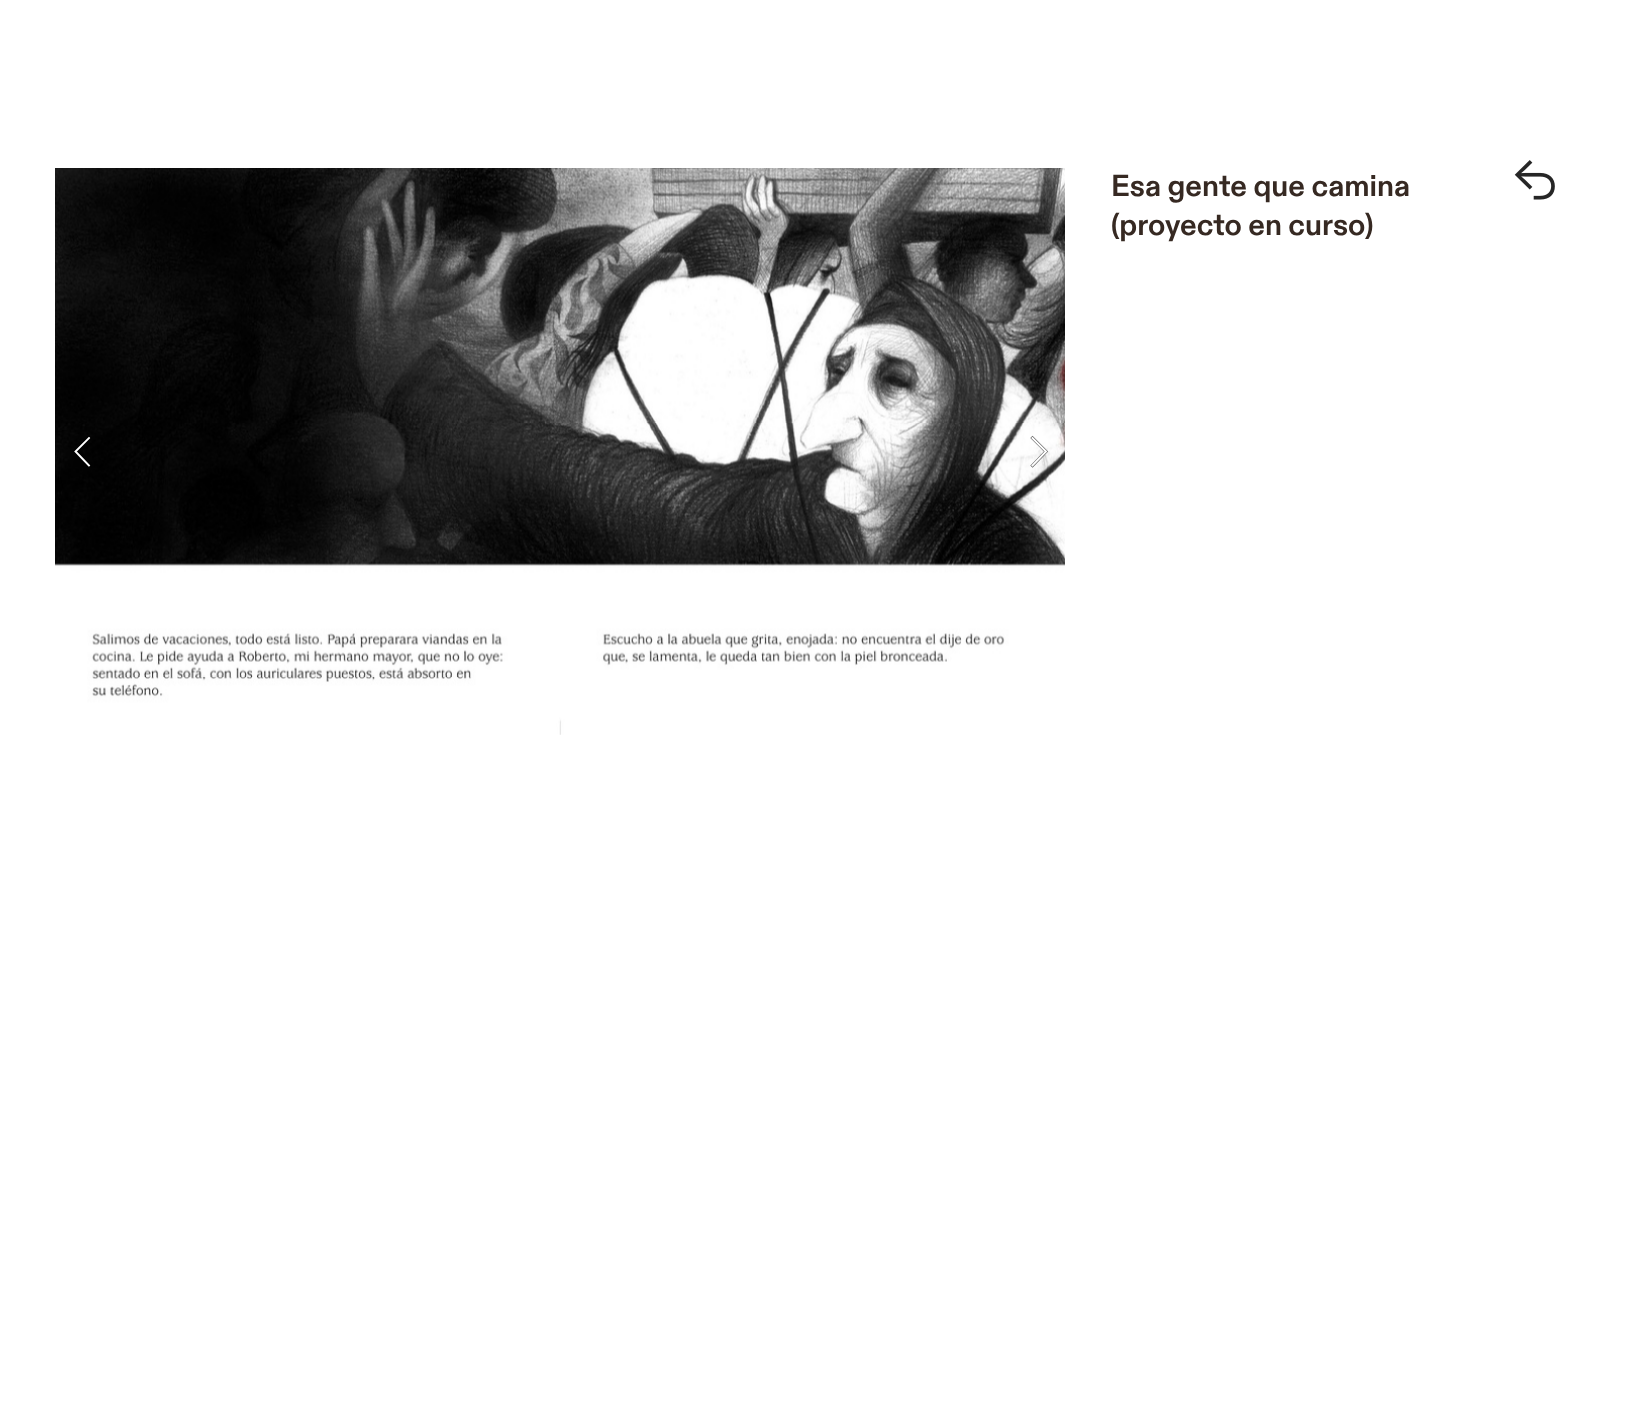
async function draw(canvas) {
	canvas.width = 1651;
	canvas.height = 1406;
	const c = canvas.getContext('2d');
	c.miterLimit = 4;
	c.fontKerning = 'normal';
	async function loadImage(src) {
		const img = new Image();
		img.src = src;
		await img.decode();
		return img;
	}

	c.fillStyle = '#fff';
	c.fillRect(0, 0, 1651, 1406);
	c.drawImage(await loadImage('img1.png'), 55, 168, 1010, 567);
	c.beginPath();
	c.moveTo(89, 465.5);
	c.lineTo(75.5, 451.5);
	c.lineTo(89, 438);
	c.strokeStyle = '#00000099';
	c.lineWidth = 3.1;
	c.lineCap = 'square';
	c.stroke();
	c.beginPath();
	c.moveTo(89, 465.5);
	c.lineTo(75.5, 451.5);
	c.lineTo(89, 438);
	c.strokeStyle = '#fff';
	c.lineWidth = 1.9;
	c.stroke();
	c.beginPath();
	c.moveTo(1032.5, 465.5);
	c.lineTo(1046, 451.5);
	c.lineTo(1032.5, 438);
	c.strokeStyle = '#00000099';
	c.lineWidth = 3.1;
	c.stroke();
	c.beginPath();
	c.moveTo(1032.5, 465.5);
	c.lineTo(1046, 451.5);
	c.lineTo(1032.5, 438);
	c.strokeStyle = '#fff';
	c.lineWidth = 1.9;
	c.stroke();
	c.font = 'bold 30.4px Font';
	c.fillStyle = '#362922';
	c.fillText('Esa gente que camina', 1111, 196);
	c.fillText('(proyecto en curso)', 1111, 235);
	c.drawImage(await loadImage('img2.png'), 1514, 160, 41, 40);
}

draw(document.querySelector('canvas'));
